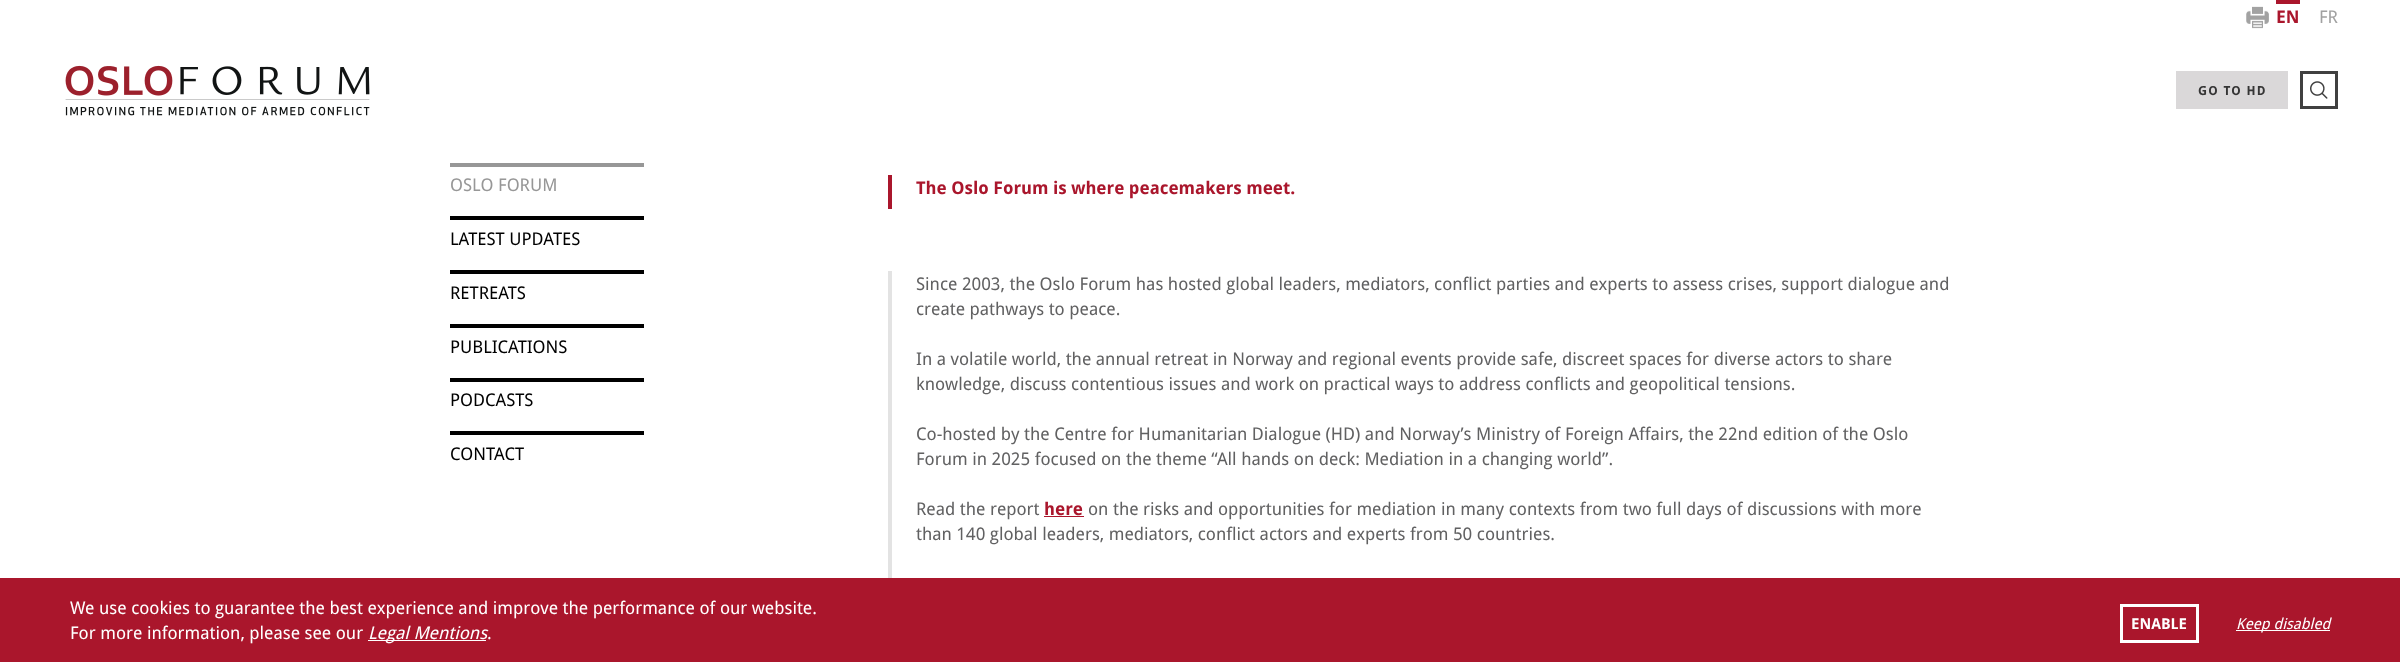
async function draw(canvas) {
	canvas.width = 2400;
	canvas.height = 662;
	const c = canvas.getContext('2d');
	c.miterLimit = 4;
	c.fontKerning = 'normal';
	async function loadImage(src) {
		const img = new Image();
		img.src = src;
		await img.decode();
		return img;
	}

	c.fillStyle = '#fff';
	c.fillRect(0, 0, 2400, 662);
	c.drawImage(await loadImage('img1.png'), 2246, 6, 23, 23);
	c.fillStyle = '#aa162c';
	c.fillRect(2276, 0, 24, 4);
	c.font = 'bold 17.5px Droid Sans';
	c.fillText('EN', 2276, 23);
	c.font = '17.5px Droid Sans';
	c.fillStyle = '#a1a1a1';
	c.fillText('FR', 2319, 23);
	c.drawImage(await loadImage('img2.png'), 65, 65, 305, 51);
	c.fillStyle = '#dad8d9';
	c.fillRect(2176, 71, 112, 38);
	c.letterSpacing = '1.25px';
	c.font = 'bold 12.5px Droid Sans';
	c.fillStyle = '#353535';
	c.fillText('GO TO HD', 2198, 95);
	c.strokeStyle = '#404040';
	c.lineWidth = 3;
	c.strokeRect(2301.5, 72.5, 35, 35);
	c.drawImage(await loadImage('img3.png'), 2310, 81, 18, 18);
	c.fillStyle = '#979797';
	c.fillRect(450, 163, 194, 4);
	c.letterSpacing = '0px';
	c.font = '17.5px Droid Sans';
	c.fillText('OSLO FORUM', 450, 191);
	c.fillStyle = '#000';
	c.fillRect(450, 216, 194, 4);
	c.fillText('LATEST UPDATES', 450, 245);
	c.fillRect(450, 270, 194, 4);
	c.fillText('RETREATS', 450, 299);
	c.fillRect(450, 324, 194, 4);
	c.fillText('PUBLICATIONS', 450, 353);
	c.fillRect(450, 378, 194, 4);
	c.fillText('PODCASTS', 450, 406);
	c.fillRect(450, 431, 194, 4);
	c.fillText('CONTACT', 450, 460);
	c.fillStyle = '#aa162c';
	c.fillRect(888, 175, 4, 34);
	c.font = 'bold 17.5px Droid Sans';
	c.fillText('The Oslo Forum is where peacemakers meet.', 916, 194);
	c.fillStyle = '#e3e3e3';
	c.fillRect(888, 271, 4, 307);
	c.font = '17.5px Droid Sans';
	c.fillStyle = '#616162';
	for (const [text, x, y] of [
		['Since 2003, the Oslo Forum has hosted global leaders, mediators, conflict parties and experts to assess crises, support dialogue and', 916, 290],
		['create pathways to peace.', 916, 315],
		['In a volatile world, the annual retreat in Norway and regional events provide safe, discreet spaces for diverse actors to share', 916, 365],
		['knowledge, discuss contentious issues and work on practical ways to address conflicts and geopolitical tensions.', 916, 390],
		['Co-hosted by the Centre for Humanitarian Dialogue (HD) and Norway’s Ministry of Foreign Affairs, the 22nd edition of the Oslo', 916, 440],
		['Forum in 2025 focused on the theme “All hands on deck: Mediation in a changing world”.', 916, 465],
		['Read the report', 916, 515],
	]) {
		c.fillText(text, x, y);
	}
	c.font = 'bold 17.5px Droid Sans';
	c.fillStyle = '#aa162c';
	c.fillText('here', 1044, 515);
	c.fillRect(1044, 516, 40, 1);
	c.font = '17.5px Droid Sans';
	c.fillStyle = '#616162';
	c.fillText('on the risks and opportunities for mediation in many contexts from two full days of discussions with more', 1088, 515);
	c.fillText('than 140 global leaders, mediators, conflict actors and experts from 50 countries.', 916, 540);
	c.fillStyle = '#aa162c';
	c.fillRect(0, 578, 2400, 84);
	c.fillStyle = '#fff';
	c.fillText('We use cookies to guarantee the best experience and improve the performance of our website.', 70, 614);
	c.fillText('For more information, please see our', 70, 639);
	c.fillRect(368, 640, 118, 1);
	c.font = 'italic 17.5px Droid Sans';
	c.fillText('Legal Mentions', 368, 639);
	c.font = '17.5px Droid Sans';
	c.fillText('.', 487, 639);
	c.strokeStyle = '#fff';
	c.strokeRect(2121.5, 605.5, 76, 36);
	c.font = 'bold 15px Droid Sans';
	c.fillText('ENABLE', 2131, 629);
	c.fillRect(2236, 630, 94, 1);
	c.font = 'italic 15px Droid Sans';
	c.fillText('Keep disabled', 2236, 629);
}

draw(document.querySelector('canvas'));
